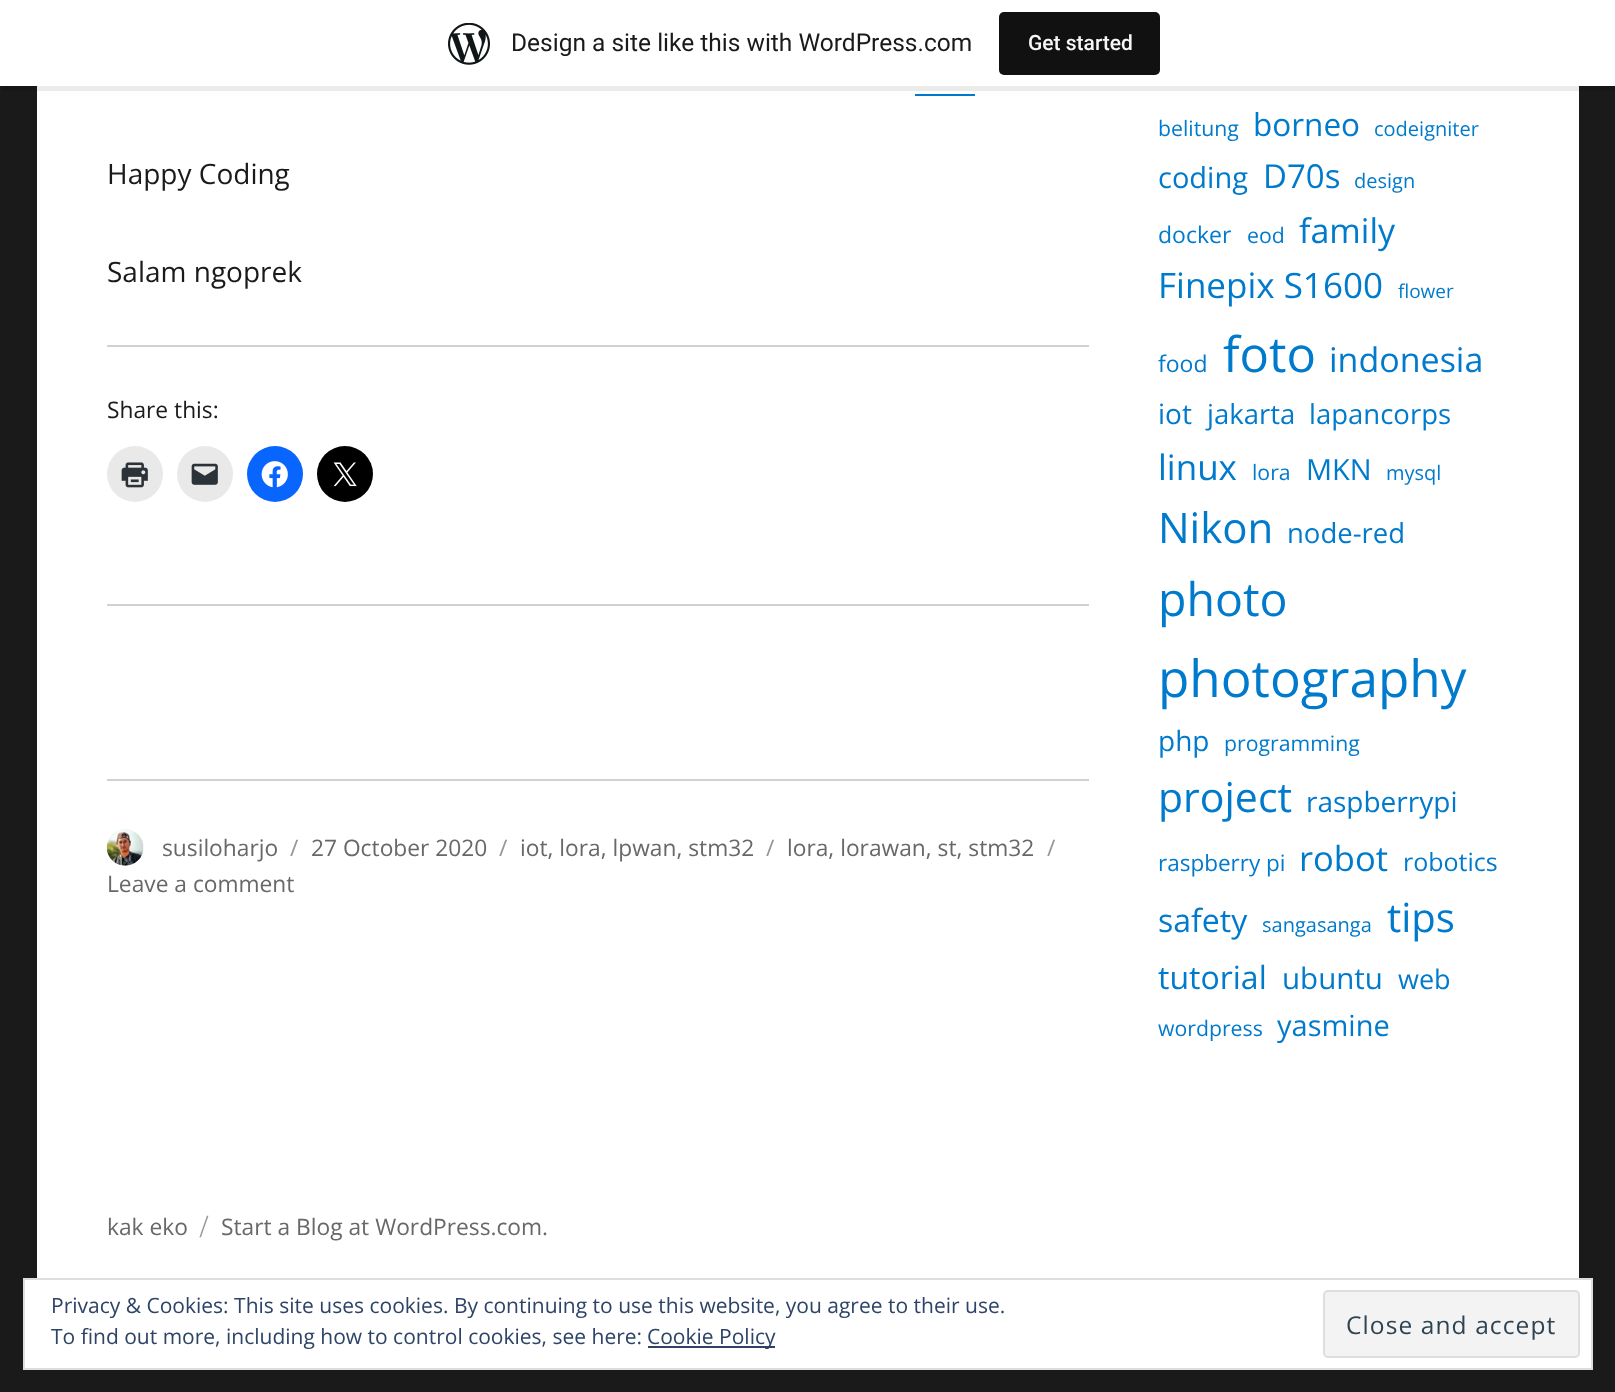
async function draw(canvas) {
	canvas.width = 1615;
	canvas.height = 1392;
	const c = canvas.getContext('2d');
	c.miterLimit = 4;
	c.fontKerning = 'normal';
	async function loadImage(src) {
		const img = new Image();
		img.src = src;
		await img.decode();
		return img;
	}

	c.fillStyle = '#1a1a1a';
	c.fillRect(0, 0, 1615, 1392);
	c.fillStyle = '#fff';
	c.fillRect(37, 86, 1542, 1192);
	c.fillStyle = '#00000014';
	c.beginPath();
	c.moveTo(2, 86);
	c.lineTo(2, 91);
	c.lineTo(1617, 91);
	c.lineTo(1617, 5);
	c.lineTo(1615, 5);
	c.lineTo(1615, 86);
	c.closePath();
	c.fill();
	c.fillStyle = '#fff';
	c.fillRect(0, 0, 1615, 86);
	c.drawImage(await loadImage('img1.png'), 448, 23, 42, 42);
	c.font = '24.5px Roboto';
	c.fillStyle = '#1a1a1a';
	c.fillText('Design a site like this with WordPress.com', 511, 51);
	c.fillStyle = '#111';
	c.beginPath();
	c.roundRect(999, 12, 161, 63, 5);
	c.fill();
	c.font = '500 21px Roboto';
	c.fillStyle = '#f6f7f7';
	c.fillText('Get started', 1028, 50);
	c.fillStyle = '#007acc';
	c.beginPath();
	c.moveTo(915, 58);
	c.lineTo(915, 96);
	c.lineTo(975, 96);
	c.lineTo(975, 58);
	c.lineTo(975, 94);
	c.lineTo(915, 94);
	c.closePath();
	c.fill();
	c.font = '28px Open Sans';
	c.fillStyle = '#1a1a1a';
	c.fillText('Happy Coding', 107, 184);
	c.fillText('Salam ngoprek', 107, 282);
	c.fillStyle = '#d1d1d1';
	c.fillRect(107, 345, 982, 2);
	c.font = '22.75px Open Sans';
	c.fillStyle = '#1a1a1a';
	c.fillText('Share this:', 107, 418);
	c.fillStyle = '#e9e9e9';
	c.beginPath();
	c.arc(135, 474, 28, 0, 2 * Math.PI);
	c.fill();
	c.drawImage(await loadImage('img2.png'), 121, 462, 27, 26);
	c.beginPath();
	c.arc(205, 474, 28, 0, 2 * Math.PI);
	c.fill();
	c.drawImage(await loadImage('img3.png'), 191, 463, 27, 22);
	c.fillStyle = '#0866ff';
	c.beginPath();
	c.arc(275, 474, 28, 0, 2 * Math.PI);
	c.fill();
	c.drawImage(await loadImage('img4.png'), 261, 461, 27, 27);
	c.fillStyle = '#000';
	c.beginPath();
	c.arc(345, 474, 28, 0, 2 * Math.PI);
	c.fill();
	c.drawImage(await loadImage('img5.png'), 333, 462, 24, 25);
	c.fillStyle = '#d1d1d1';
	c.fillRect(107, 604, 982, 2);
	c.fillRect(107, 779, 982, 2);
	c.drawImage(await loadImage('img6.png'), 106, 829, 38, 37);
	c.fillStyle = '#686868';
	c.fillText('susiloharjo', 162, 856);
	c.fillStyle = '#959595';
	c.fillText('/', 290, 856);
	c.fillStyle = '#686868';
	c.fillText('27 October 2020', 311, 856);
	c.fillStyle = '#959595';
	c.fillText('/', 499, 856);
	c.fillStyle = '#686868';
	c.fillText('iot, lora, lpwan, stm32', 520, 856);
	c.fillStyle = '#959595';
	c.fillText('/', 766, 856);
	c.fillStyle = '#686868';
	c.fillText('lora, lorawan, st, stm32', 787, 856);
	c.fillStyle = '#959595';
	c.fillText('/', 1047, 856);
	c.fillStyle = '#686868';
	c.fillText('Leave a comment', 107, 892);
	c.font = '21.25px Open Sans';
	c.fillStyle = '#007acc';
	c.fillText('belitung', 1158, 136);
	c.font = '31.5px Open Sans';
	c.fillText('borneo', 1253, 136);
	c.font = '20px Open Sans';
	c.fillText('codeigniter', 1374, 136);
	c.font = '29px Open Sans';
	c.fillText('coding', 1158, 188);
	c.font = '33px Open Sans';
	c.fillText('D70s', 1263, 188);
	c.font = '20px Open Sans';
	c.fillText('design', 1354, 188);
	c.font = '23px Open Sans';
	c.fillText('docker', 1158, 243);
	c.font = '21.25px Open Sans';
	c.fillText('eod', 1247, 243);
	c.font = '34px Open Sans';
	c.fillText('family', 1299, 243);
	c.font = '35px Open Sans';
	c.fillText('Finepix S1600', 1158, 298);
	c.font = '19px Open Sans';
	c.fillText('flower', 1398, 298);
	c.font = '23px Open Sans';
	c.fillText('food', 1158, 372);
	c.font = '49px Open Sans';
	c.fillText('foto', 1223, 372);
	c.font = '34px Open Sans';
	c.fillText('indonesia', 1329, 372);
	c.font = '28px Open Sans';
	c.fillText('iot', 1158, 424);
	c.font = '27.5px Open Sans';
	c.fillText('jakarta', 1207, 424);
	c.fillText('lapancorps', 1309, 424);
	c.font = '35px Open Sans';
	c.fillText('linux', 1158, 480);
	c.font = '21.25px Open Sans';
	c.fillText('lora', 1252, 480);
	c.font = '29px Open Sans';
	c.fillText('MKN', 1306, 480);
	c.font = '20px Open Sans';
	c.fillText('mysql', 1386, 480);
	c.font = '42px Open Sans';
	c.fillText('Nikon', 1158, 543);
	c.font = '27.5px Open Sans';
	c.fillText('node-red', 1287, 543);
	c.font = '46.5px Open Sans';
	c.fillText('photo', 1158, 616);
	c.font = '51.25px Open Sans';
	c.fillText('photography', 1158, 697);
	c.font = '28px Open Sans';
	c.fillText('php', 1158, 751);
	c.font = '21.25px Open Sans';
	c.fillText('programming', 1224, 751);
	c.font = '41px Open Sans';
	c.fillText('project', 1158, 812);
	c.font = '28px Open Sans';
	c.fillText('raspberrypi', 1306, 812);
	c.font = '22.5px Open Sans';
	c.fillText('raspberry pi', 1158, 871);
	c.font = '34.5px Open Sans';
	c.fillText('robot', 1299, 871);
	c.font = '25px Open Sans';
	c.fillText('robotics', 1403, 871);
	c.font = '32px Open Sans';
	c.fillText('safety', 1158, 932);
	c.font = '20px Open Sans';
	c.fillText('sangasanga', 1262, 932);
	c.font = '40px Open Sans';
	c.fillText('tips', 1387, 932);
	c.font = '32px Open Sans';
	c.fillText('tutorial', 1158, 989);
	c.font = '29.5px Open Sans';
	c.fillText('ubuntu', 1282, 989);
	c.font = '27px Open Sans';
	c.fillText('web', 1398, 989);
	c.font = '21.25px Open Sans';
	c.fillText('wordpress', 1158, 1036);
	c.font = '29px Open Sans';
	c.fillText('yasmine', 1277, 1036);
	c.font = '22.75px Open Sans';
	c.fillStyle = '#686868';
	c.fillText('kak eko', 107, 1235);
	c.font = '100 22.75px Montserrat';
	c.fillStyle = '#959595';
	c.fillText('/', 200, 1235);
	c.font = '22.75px Open Sans';
	c.fillStyle = '#686868';
	c.fillText('Start a Blog at WordPress.com.', 221, 1235);
	c.fillStyle = '#fff';
	c.beginPath();
	c.rect(24, 1279, 1568, 90);
	c.fill();
	c.strokeStyle = '#dedede';
	c.lineWidth = 2;
	c.stroke();
	c.font = '21px Open Sans';
	c.fillStyle = '#2e4467';
	c.fillText('Privacy & Cookies: This site uses cookies. By continuing to use this website, you agree to their use.', 51, 1313);
	c.fillText('To find out more, including how to control cookies, see here:', 51, 1344);
	c.fillRect(648, 1346, 127, 2);
	c.fillText('Cookie Policy', 647, 1344);
	c.fillStyle = '#f3f3f3';
	c.beginPath();
	c.roundRect(1324, 1291, 255, 66, 4);
	c.fill();
	c.stroke();
	c.letterSpacing = '1.1px';
	c.font = '24.5px Open Sans';
	c.fillStyle = '#2e4453';
	c.fillText('Close and accept', 1346, 1334);
}

draw(document.querySelector('canvas'));
